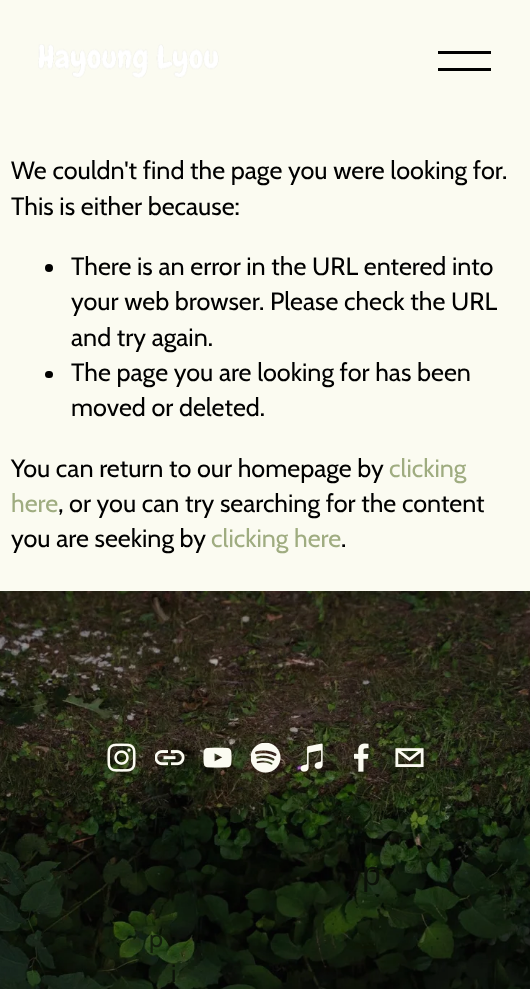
async function draw(canvas) {
	canvas.width = 530;
	canvas.height = 989;
	const c = canvas.getContext('2d');
	c.miterLimit = 4;
	c.fontKerning = 'normal';
	async function loadImage(src) {
		const img = new Image();
		img.src = src;
		await img.decode();
		return img;
	}

	c.fillStyle = '#fbfbf1';
	c.fillRect(0, 0, 530, 989);
	c.drawImage(await loadImage('img1.png'), 38, 44, 181, 34);
	c.fillStyle = '#000';
	c.fillRect(438, 51, 53, 3);
	c.fillRect(438, 68, 53, 3);
	c.font = '25.2px Cabin';
	c.fillText('We couldn\'t find the page you were looking for.', 11, 179);
	c.fillText('This is either because:', 11, 215);
	c.beginPath();
	c.arc(49, 268, 4, 0, 2 * Math.PI);
	c.fill();
	for (const [text, x, y] of [
		['There is an error in the URL entered into', 71, 275],
		['your web browser. Please check the URL', 71, 310],
		['and try again.', 71, 346],
	]) {
		c.fillText(text, x, y);
	}
	c.beginPath();
	c.roundRect(45, 371, 8, 7, 3.5);
	c.fill();
	for (const [text, x, y] of [
		['The page you are looking for has been', 71, 381],
		['moved or deleted.', 71, 416],
		['You can return to our homepage by', 11, 477],
	]) {
		c.fillText(text, x, y);
	}
	c.fillStyle = '#9fac80';
	c.fillText('clicking', 389, 477);
	c.fillText('here', 11, 512);
	c.fillStyle = '#000';
	c.fillText(', or you can try searching for the content', 58, 512);
	c.fillText('you are seeking by', 11, 547);
	c.fillStyle = '#9fac80';
	c.fillText('clicking here', 211, 547);
	c.fillStyle = '#000';
	c.fillText('.', 341, 547);
	c.drawImage(await loadImage('img2.png'), 0, 591, 530, 398);
	c.drawImage(await loadImage('img3.png'), 107, 743, 29, 29);
	c.drawImage(await loadImage('img4.png'), 155, 750, 30, 16);
	c.drawImage(await loadImage('img5.png'), 203, 747, 29, 21);
	c.drawImage(await loadImage('img6.png'), 251, 743, 30, 30);
	c.drawImage(await loadImage('img7.png'), 300, 743, 23, 29);
	c.drawImage(await loadImage('img8.png'), 354, 743, 15, 29);
	c.drawImage(await loadImage('img9.png'), 395, 748, 29, 19);
	c.font = '34px Liberation Sans';
	c.fillStyle = '#0c1209';
	c.fillText('p', 362, 885);
	c.font = '25.2px Cabin';
	c.fillStyle = '#131f0c';
	c.fillText('p', 149, 947);
	c.fillStyle = '#0c1209';
	c.fillText('i', 171, 982);
}

draw(document.querySelector('canvas'));
